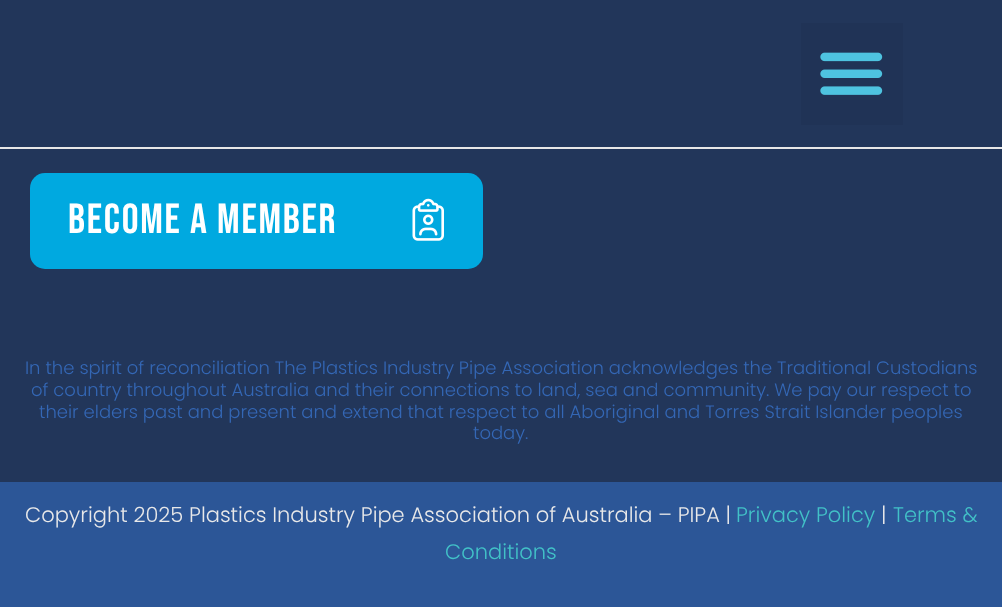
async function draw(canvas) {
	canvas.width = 1002;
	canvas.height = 607;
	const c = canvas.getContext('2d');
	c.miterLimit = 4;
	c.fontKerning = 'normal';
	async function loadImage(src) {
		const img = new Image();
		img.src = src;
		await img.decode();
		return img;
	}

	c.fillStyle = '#22365a';
	c.fillRect(0, 0, 1002, 607);
	c.fillStyle = '#e7e7e7';
	c.fillRect(0, 147, 1002, 2);
	c.fillStyle = '#203356';
	c.fillRect(801, 23, 102, 102);
	c.drawImage(await loadImage('img1.png'), 820, 52, 63, 43);
	c.fillStyle = '#00a9e0';
	c.beginPath();
	c.roundRect(30, 173, 453, 96, 15);
	c.fill();
	c.letterSpacing = '1.75px';
	c.font = '42px Bebas Neue';
	c.fillStyle = '#fff';
	c.fillText('Become A Member', 68, 233);
	c.drawImage(await loadImage('img2.png'), 412, 198, 32, 43);
	c.letterSpacing = '0px';
	c.font = '300 18px Poppins';
	c.fillStyle = '#3467b5';
	for (const [text, x, y] of [
		['In the spirit of reconciliation The Plastics Industry Pipe Association acknowledges the Traditional Custodians', 25, 374],
		['of country throughout Australia and their connections to land, sea and community. We pay our respect to', 31, 396],
		['their elders past and present and extend that respect to all Aboriginal and Torres Strait Islander peoples', 39, 418],
		['today.', 473, 439],
	]) {
		c.fillText(text, x, y);
	}
	c.fillStyle = '#2c5697';
	c.fillRect(0, 482, 1002, 125);
	c.font = '300 21px Poppins';
	c.fillStyle = '#e8e8e9';
	c.fillText('Copyright 2025 Plastics Industry Pipe Association of Australia – PIPA |', 25, 522);
	c.fillStyle = '#42c1c7';
	c.fillText('Privacy Policy', 736, 522);
	c.fillStyle = '#e8e8e9';
	c.fillText('|', 881, 522);
	c.fillStyle = '#42c1c7';
	c.fillText('Terms &', 893, 522);
	c.fillText('Conditions', 445, 559);
}

draw(document.querySelector('canvas'));
